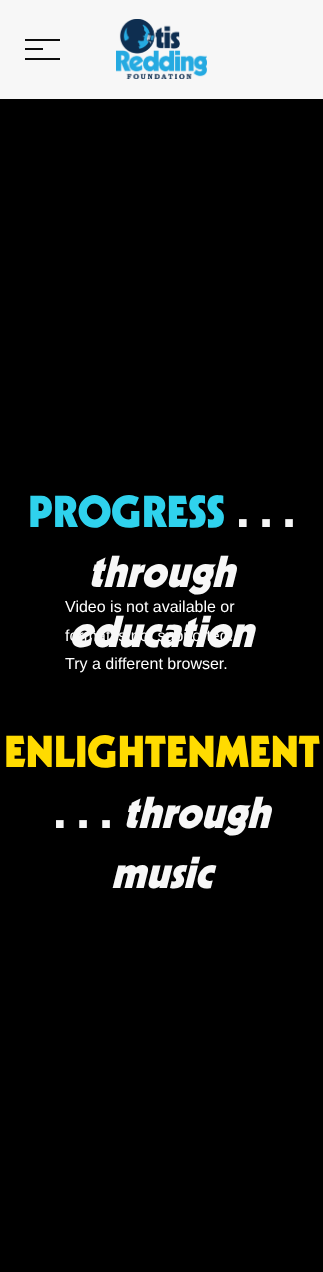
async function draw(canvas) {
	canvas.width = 323;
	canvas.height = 1272;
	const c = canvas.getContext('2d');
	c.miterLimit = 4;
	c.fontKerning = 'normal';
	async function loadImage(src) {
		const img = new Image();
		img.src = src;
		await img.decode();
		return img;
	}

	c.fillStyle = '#000';
	c.fillRect(0, 0, 323, 1272);
	for (const [x, y, w, h, color] of [
		[0, 0, 323, 99, '#f7f7f7'],
		[25, 39, 35, 2, '#0d0d0d'],
		[25, 48, 18, 2, '#0d0d0d'],
		[25, 58, 35, 2, '#0d0d0d'],
	]) {
		c.fillStyle = color;
		c.fillRect(x, y, w, h);
	}
	c.drawImage(await loadImage('img1.png'), 116, 19, 91, 60);
	c.font = '900 43.25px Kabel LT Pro';
	c.fillStyle = '#2fd2ed';
	c.fillText('PROGRESS', 28, 527);
	c.fillStyle = '#f7f7f7';
	c.fillText('. . .', 237, 527);
	c.font = 'italic 900 43.25px Kabel LT Pro';
	c.fillText('through', 88, 587);
	c.font = '16px Liberation Sans';
	c.fillStyle = '#fff';
	c.fillText('format is not supported.', 65, 641);
	c.font = 'italic 900 43.25px Kabel LT Pro';
	c.fillStyle = '#f7f7f7';
	c.fillText('education', 69, 647);
	c.font = '900 43.25px Kabel LT Pro';
	c.fillStyle = '#ffdb00';
	c.fillText('ENLIGHTENMENT', 4, 767);
	c.fillStyle = '#f7f7f7';
	c.fillText('. . .', 54, 828);
	c.font = 'italic 900 43.25px Kabel LT Pro';
	c.fillText('through', 123, 828);
	c.fillText('music', 111, 888);
	c.font = '16px Liberation Sans';
	c.fillStyle = '#fff';
	c.fillText('Video is not available or', 65, 612);
	c.fillText('Try a different browser.', 65, 669);
}

draw(document.querySelector('canvas'));
